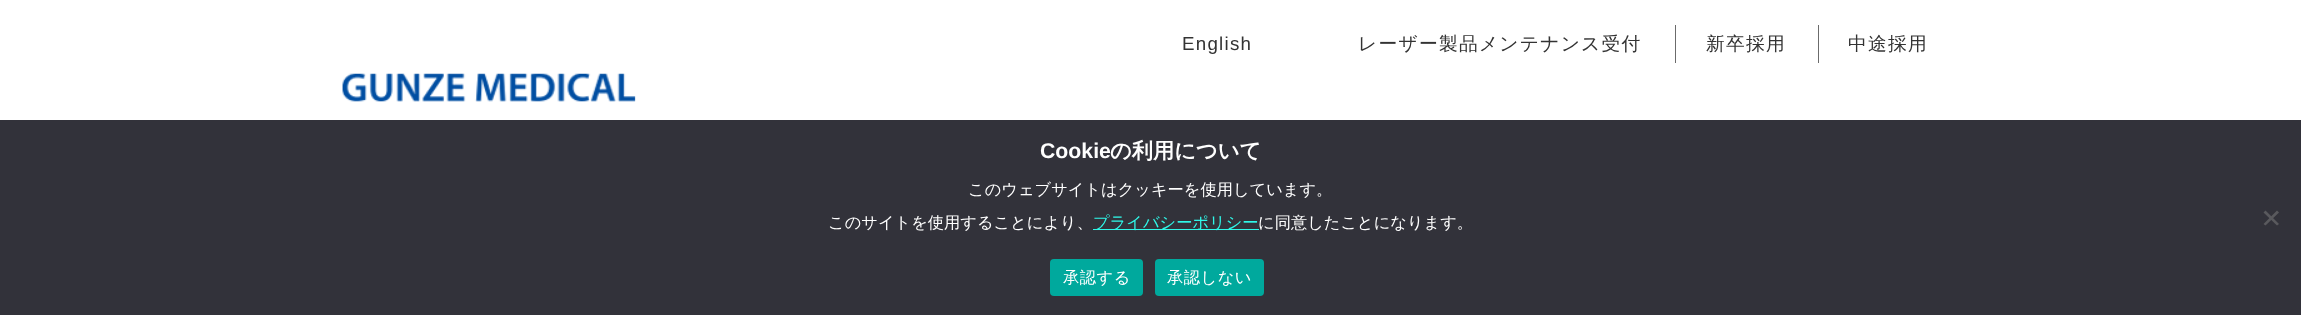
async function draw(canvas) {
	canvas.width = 2301;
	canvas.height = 315;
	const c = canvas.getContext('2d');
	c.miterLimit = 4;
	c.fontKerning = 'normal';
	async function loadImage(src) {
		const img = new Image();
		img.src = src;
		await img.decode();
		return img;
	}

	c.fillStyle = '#fff';
	c.fillRect(0, 0, 2301, 315);
	c.letterSpacing = '1.25px';
	c.font = '18.75px Liberation Sans';
	c.fillStyle = '#333';
	c.fillText('English', 1182, 50);
	c.font = '500 18.75px WenQuanYi Zen Hei';
	c.fillText('レーザー製品メンテナンス受付', 1358, 50);
	c.fillStyle = '#6b6b6b';
	c.fillRect(1675, 25, 1, 38);
	c.fillStyle = '#333';
	c.fillText('新卒採用', 1706, 50);
	c.fillStyle = '#6b6b6b';
	c.fillRect(1818, 25, 1, 38);
	c.fillStyle = '#333';
	c.fillText('中途採用', 1848, 50);
	c.drawImage(await loadImage('img1.png'), 342, 73, 294, 29);
	c.fillStyle = '#32323a';
	c.fillRect(0, 120, 2301, 195);
	c.letterSpacing = '0px';
	c.font = 'bold 21.25px Liberation Sans';
	c.fillStyle = '#fff';
	c.fillText('Cookie', 1040, 158);
	c.font = 'bold 21.25px WenQuanYi Zen Hei';
	c.fillText('の利用について', 1110, 158);
	c.font = '500 16.25px WenQuanYi Zen Hei';
	c.fillText('このウェブサイトはクッキーを使用しています。', 968, 195);
	c.fillText('このサイトを使用することにより、', 828, 228);
	c.fillStyle = '#2ff7e8';
	c.fillRect(1093, 229, 166, 1);
	c.fillText('プライバシーポリシー', 1093, 228);
	c.fillStyle = '#fff';
	c.fillText('に同意したことになります。', 1258, 228);
	c.fillStyle = '#59595d';
	c.beginPath();
	c.moveTo(2277, 210.5);
	c.lineTo(2279, 212.5);
	c.lineTo(2265.5, 225.5);
	c.lineTo(2263.5, 224);
	c.closePath();
	c.fill();
	c.beginPath();
	c.moveTo(2263.5, 212.5);
	c.lineTo(2265.5, 210.5);
	c.lineTo(2279, 224);
	c.lineTo(2277, 225.5);
	c.closePath();
	c.fill();
	c.fillStyle = '#00a99d';
	c.beginPath();
	c.roundRect(1050, 259, 93, 37, 4);
	c.fill();
	c.letterSpacing = '0.5px';
	c.fillStyle = '#fff';
	c.fillText('承認する', 1063, 283);
	c.fillStyle = '#00a99d';
	c.beginPath();
	c.roundRect(1155, 259, 109, 37, 4);
	c.fill();
	c.fillStyle = '#fff';
	c.fillText('承認しない', 1167, 283);
}

draw(document.querySelector('canvas'));
